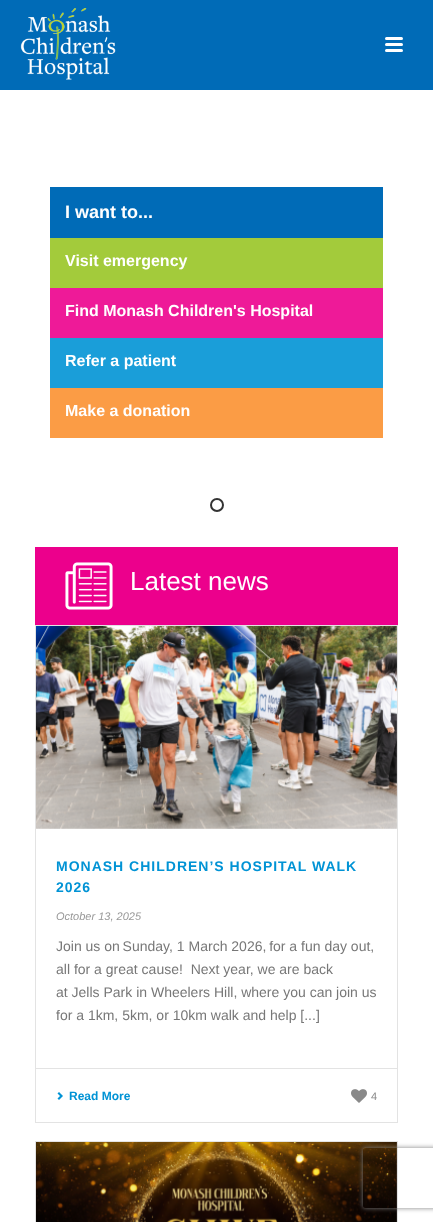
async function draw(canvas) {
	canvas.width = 433;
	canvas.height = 1222;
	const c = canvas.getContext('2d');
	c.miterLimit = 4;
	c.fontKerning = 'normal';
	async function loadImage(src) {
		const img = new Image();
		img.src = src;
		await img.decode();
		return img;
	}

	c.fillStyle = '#fff';
	c.fillRect(0, 0, 433, 1222);
	c.fillStyle = '#006bb7';
	c.fillRect(0, 0, 433, 90);
	c.drawImage(await loadImage('img1.png'), 20, 8, 96, 72);
	c.fillStyle = '#fff';
	c.beginPath();
	c.roundRect(385, 37, 18, 3, 1.5);
	c.fill();
	c.beginPath();
	c.roundRect(385, 43, 18, 3, 1.5);
	c.fill();
	c.beginPath();
	c.roundRect(385, 49, 18, 3, 1.5);
	c.fill();
	c.fillStyle = '#006bb7';
	c.fillRect(50, 187, 333, 51);
	c.font = 'bold 18px Liberation Sans';
	c.fillStyle = '#fff';
	c.fillText('I want to...', 65, 218);
	c.fillStyle = '#a3cb3b';
	c.fillRect(50, 238, 333, 50);
	c.font = 'bold 16px Liberation Sans';
	c.fillStyle = '#fff';
	c.fillText('Visit emergency', 65, 266);
	c.fillStyle = '#ee1a98';
	c.fillRect(50, 288, 333, 50);
	c.fillStyle = '#fff';
	c.fillText('Find Monash Children\'s Hospital', 65, 316);
	c.fillStyle = '#1a9ed9';
	c.fillRect(50, 338, 333, 50);
	c.fillStyle = '#fff';
	c.fillText('Refer a patient', 65, 366);
	c.fillStyle = '#fb9c45';
	c.fillRect(50, 388, 333, 50);
	c.fillStyle = '#fff';
	c.fillText('Make a donation', 65, 416);
	c.beginPath();
	c.arc(217, 505, 6, 0, 2 * Math.PI);
	c.strokeStyle = '#333';
	c.lineWidth = 2;
	c.stroke();
	c.fillStyle = '#ec008c';
	c.fillRect(35, 547, 363, 78);
	c.drawImage(await loadImage('img2.png'), 65, 562, 48, 48);
	c.font = '26px Liberation Sans';
	c.fillStyle = '#fff';
	c.fillText('Latest news', 130, 590);
	c.strokeStyle = '#e3e3e3';
	c.lineWidth = 1;
	c.strokeRect(35.5, 625.5, 362, 497);
	c.drawImage(await loadImage('img3.png'), 36, 626, 361, 203);
	c.letterSpacing = '1px';
	c.font = 'bold 14px Liberation Sans';
	c.fillStyle = '#0193d5';
	c.fillText('MONASH CHILDREN’S HOSPITAL WALK', 56, 871);
	c.fillText('2026', 56, 892);
	c.letterSpacing = '0px';
	c.font = 'italic 11px Liberation Sans';
	c.fillStyle = '#999';
	c.fillText('October 13, 2025', 56, 920);
	c.font = '14px Liberation Sans';
	c.fillStyle = '#777';
	for (const [text, x, y] of [
		['Join us on Sunday, 1 March 2026, for a fun day out,', 56, 951],
		['all for a great cause!  Next year, we are back', 56, 974],
		['at Jells Park in Wheelers Hill, where you can join us', 56, 997],
		['for a 1km, 5km, or 10km walk and help [...]', 56, 1020],
	]) {
		c.fillText(text, x, y);
	}
	c.fillStyle = '#e3e3e3';
	c.fillRect(36, 1068, 361, 1);
	c.drawImage(await loadImage('img4.png'), 57, 1092, 6, 8);
	c.font = 'bold 12px Liberation Sans';
	c.fillStyle = '#0193d5';
	c.fillText('Read More', 69, 1100);
	c.drawImage(await loadImage('img5.png'), 351, 1089, 16, 14);
	c.font = '11px Liberation Sans';
	c.fillStyle = '#898989';
	c.fillText('4', 371, 1100);
	c.strokeRect(35.5, 1141.5, 362, 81);
	c.drawImage(await loadImage('img6.png'), 36, 1142, 361, 80);
	c.save();
	c.beginPath();
	c.moveTo(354, 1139);
	c.lineTo(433, 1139);
	c.lineTo(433, 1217);
	c.lineTo(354, 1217);
	c.closePath();
	c.moveTo(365, 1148);
	c.lineTo(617, 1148);
	c.bezierCurveTo(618, 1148, 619, 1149, 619, 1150);
	c.lineTo(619, 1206);
	c.bezierCurveTo(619, 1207, 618, 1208, 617, 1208);
	c.lineTo(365, 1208);
	c.bezierCurveTo(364, 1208, 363, 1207, 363, 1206);
	c.lineTo(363, 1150);
	c.bezierCurveTo(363, 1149, 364, 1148, 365, 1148);
	c.closePath();
	c.clip('evenodd');
	c.fillStyle = '#808080';
	c.filter = 'blur(2.5px)';
	c.beginPath();
	c.roundRect(363, 1148, 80, 60, 2);
	c.fill();
	c.filter = 'none';
	c.restore();
}

draw(document.querySelector('canvas'));
